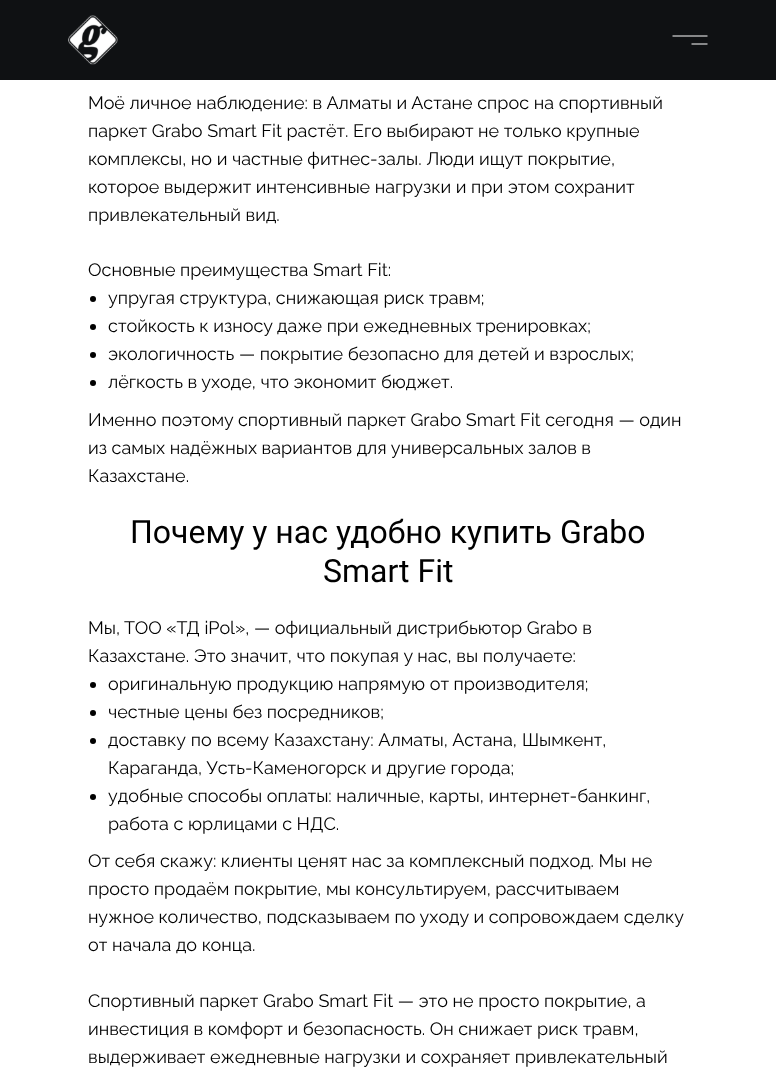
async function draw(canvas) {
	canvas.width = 776;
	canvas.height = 1081;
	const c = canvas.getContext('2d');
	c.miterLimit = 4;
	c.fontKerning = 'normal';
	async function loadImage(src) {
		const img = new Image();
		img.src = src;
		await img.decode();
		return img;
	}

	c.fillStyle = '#fff';
	c.fillRect(0, 0, 776, 1081);
	c.fillStyle = '#0f1113';
	c.fillRect(0, 0, 776, 80);
	c.drawImage(await loadImage('img1.png'), 68, 15, 50, 50);
	c.beginPath();
	c.moveTo(673, 36);
	c.lineTo(707, 36);
	c.moveTo(692, 44);
	c.lineTo(707, 44);
	c.strokeStyle = '#fff';
	c.lineCap = 'square';
	c.stroke();
	c.wordSpacing = '0.1px';
	c.font = '18px Raleway';
	c.fillStyle = '#000';
	c.fillText('Моё личное наблюдение: в Алматы и Астане спрос на спортивный', 88, 109);
	c.wordSpacing = '0px';
	for (const [text, x, y] of [
		['паркет Grabo Smart Fit растёт. Его выбирают не только крупные', 88, 137],
		['комплексы, но и частные фитнес-залы. Люди ищут покрытие,', 88, 165],
		['которое выдержит интенсивные нагрузки и при этом сохранит', 88, 193],
		['привлекательный вид.', 88, 221],
		['Основные преимущества Smart Fit:', 88, 276],
	]) {
		c.fillText(text, x, y);
	}
	c.beginPath();
	c.arc(93, 299, 3, 0, 2 * Math.PI);
	c.fill();
	c.fillText('упругая структура, снижающая риск травм;', 108, 304);
	c.beginPath();
	c.arc(93, 327, 3, 0, 2 * Math.PI);
	c.fill();
	c.fillText('стойкость к износу даже при ежедневных тренировках;', 108, 332);
	c.beginPath();
	c.arc(93, 355, 3, 0, 2 * Math.PI);
	c.fill();
	c.fillText('экологичность — покрытие безопасно для детей и взрослых;', 108, 360);
	c.beginPath();
	c.arc(93, 383, 3, 0, 2 * Math.PI);
	c.fill();
	for (const [text, x, y] of [
		['лёгкость в уходе, что экономит бюджет.', 108, 388],
		['Именно поэтому спортивный паркет Grabo Smart Fit сегодня — один', 88, 426],
		['из самых надёжных вариантов для универсальных залов в', 88, 454],
		['Казахстане.', 88, 482],
	]) {
		c.fillText(text, x, y);
	}
	c.font = '32px Roboto';
	c.fillText('Почему у нас удобно купить Grabo', 130, 543);
	c.fillText('Smart Fit', 323, 582);
	c.font = '18px Raleway';
	c.fillText('Мы, ТОО «ТД iPol», — официальный дистрибьютор Grabo в', 88, 634);
	c.wordSpacing = '0.1px';
	c.fillText('Казахстане. Это значит, что покупая у нас, вы получаете:', 88, 662);
	c.beginPath();
	c.arc(93, 685, 3, 0, 2 * Math.PI);
	c.fill();
	c.wordSpacing = '0px';
	c.fillText('оригинальную продукцию напрямую от производителя;', 108, 690);
	c.beginPath();
	c.arc(93, 713, 3, 0, 2 * Math.PI);
	c.fill();
	c.fillText('честные цены без посредников;', 108, 718);
	c.beginPath();
	c.arc(93, 741, 3, 0, 2 * Math.PI);
	c.fill();
	c.wordSpacing = '0.5px';
	c.fillText('доставку по всему Казахстану: Алматы, Астана, Шымкент,', 108, 746);
	c.wordSpacing = '0px';
	c.fillText('Караганда, Усть-Каменогорск и другие города;', 108, 774);
	c.beginPath();
	c.arc(93, 797, 3, 0, 2 * Math.PI);
	c.fill();
	for (const [text, x, y] of [
		['удобные способы оплаты: наличные, карты, интернет-банкинг,', 108, 802],
		['работа с юрлицами с НДС.', 108, 830],
		['От себя скажу: клиенты ценят нас за комплексный подход. Мы не', 88, 867],
		['просто продаём покрытие, мы консультируем, рассчитываем', 88, 895],
		['нужное количество, подсказываем по уходу и сопровождаем сделку', 88, 923],
		['от начала до конца.', 88, 951],
		['Спортивный паркет Grabo Smart Fit — это не просто покрытие, а', 88, 1007],
		['инвестиция в комфорт и безопасность. Он снижает риск травм,', 88, 1035],
		['выдерживает ежедневные нагрузки и сохраняет привлекательный', 88, 1063],
	]) {
		c.fillText(text, x, y);
	}
}

draw(document.querySelector('canvas'));
